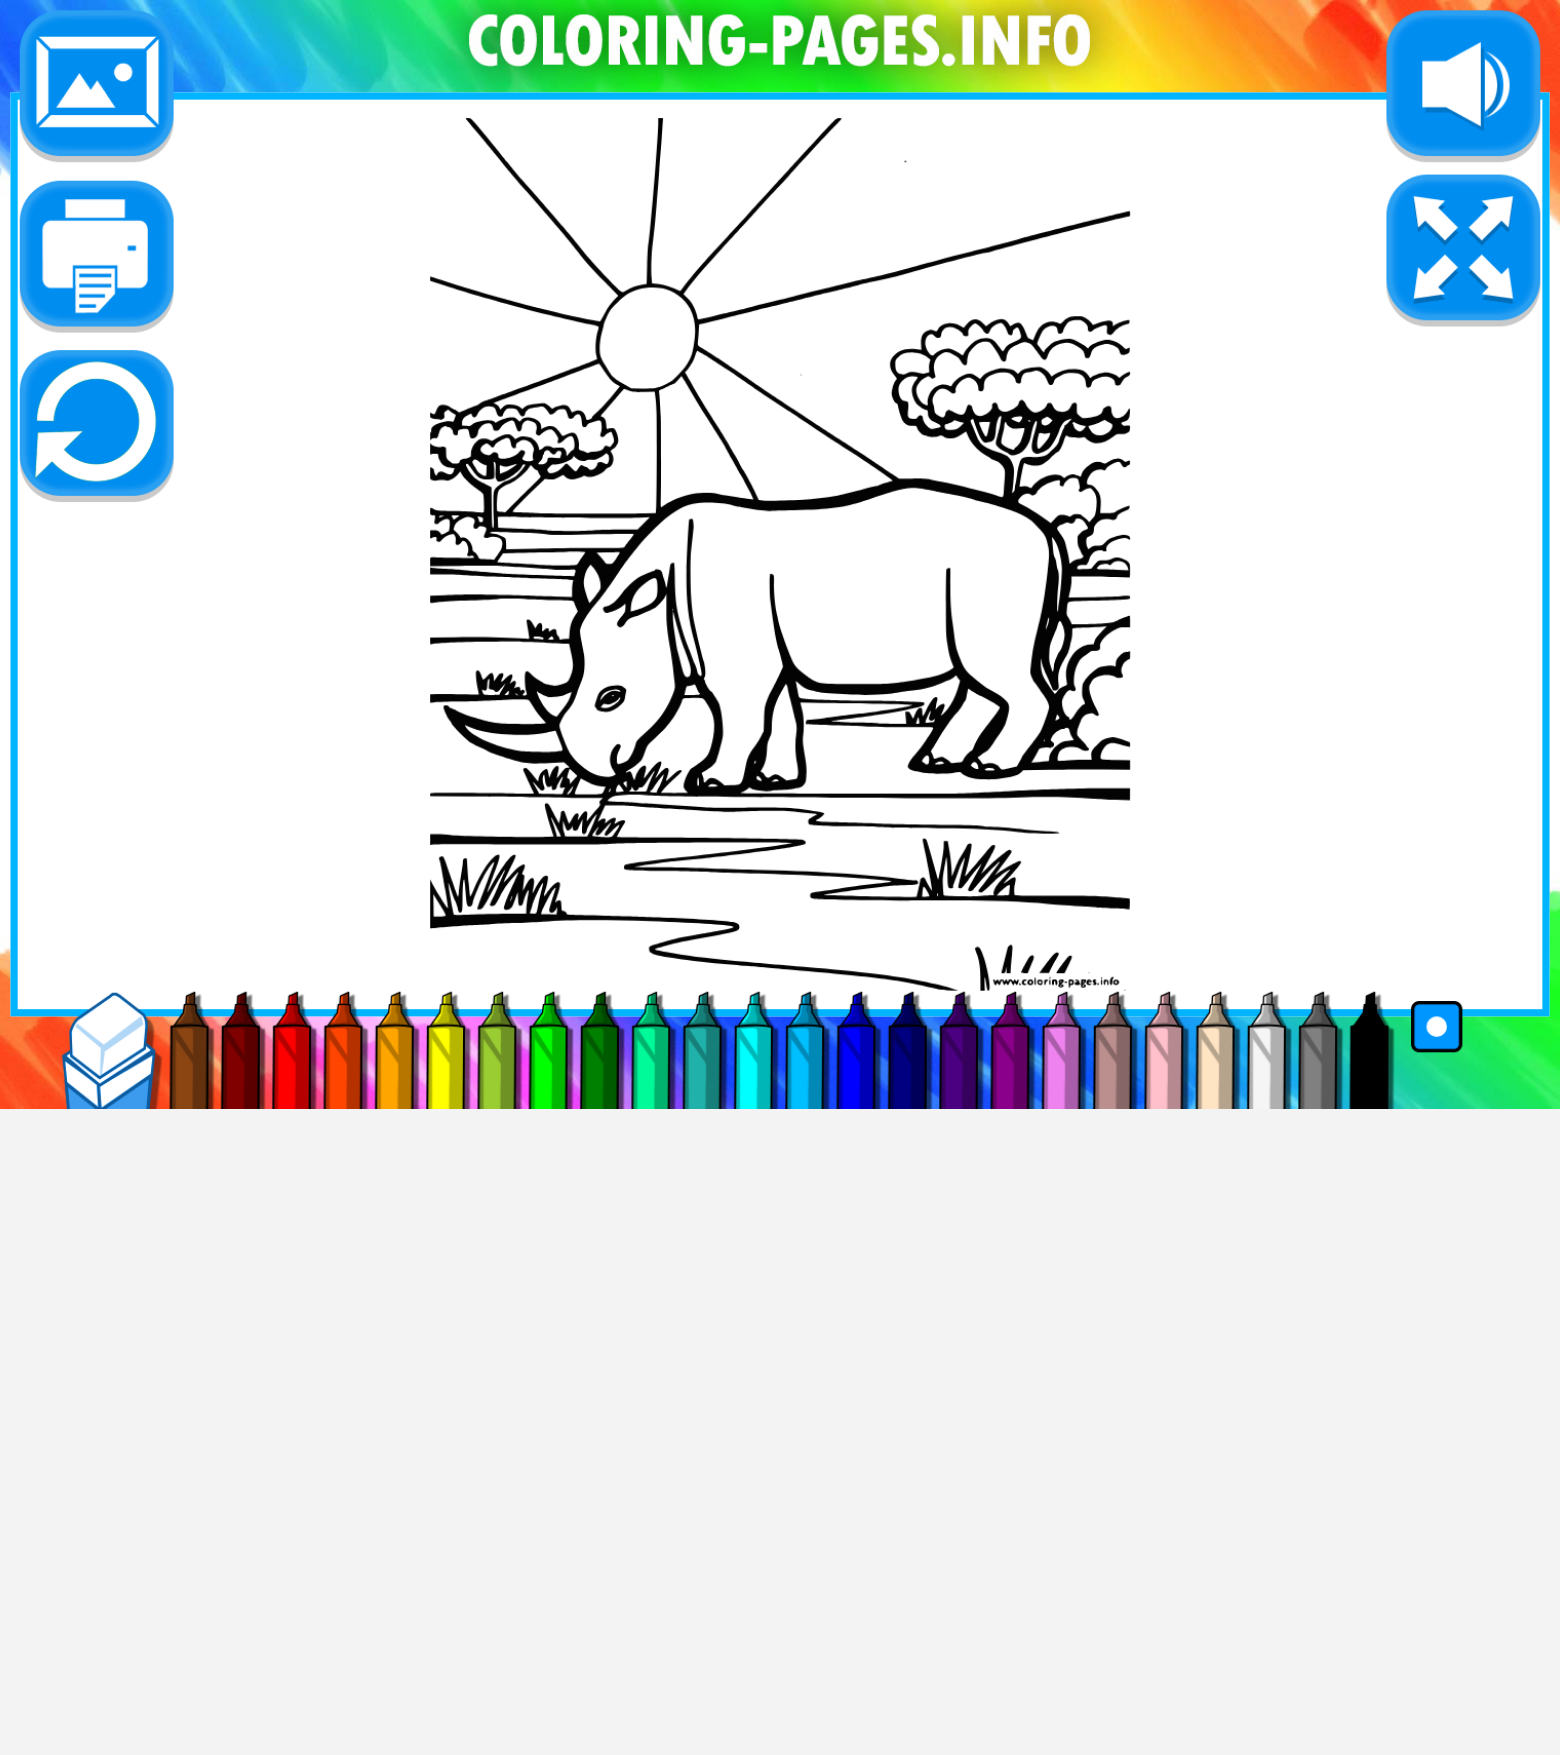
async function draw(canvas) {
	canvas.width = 1560;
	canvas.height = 1755;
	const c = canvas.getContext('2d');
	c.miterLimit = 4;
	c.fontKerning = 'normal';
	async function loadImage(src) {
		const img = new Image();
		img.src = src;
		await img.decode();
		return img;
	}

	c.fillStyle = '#f3f3f3';
	c.fillRect(0, 0, 1560, 1755);
	c.drawImage(await loadImage('img1.png'), 0, 0, 1560, 1109);
	c.drawImage(await loadImage('img2.png'), 10, 10, 1540, 1099);
}

draw(document.querySelector('canvas'));
